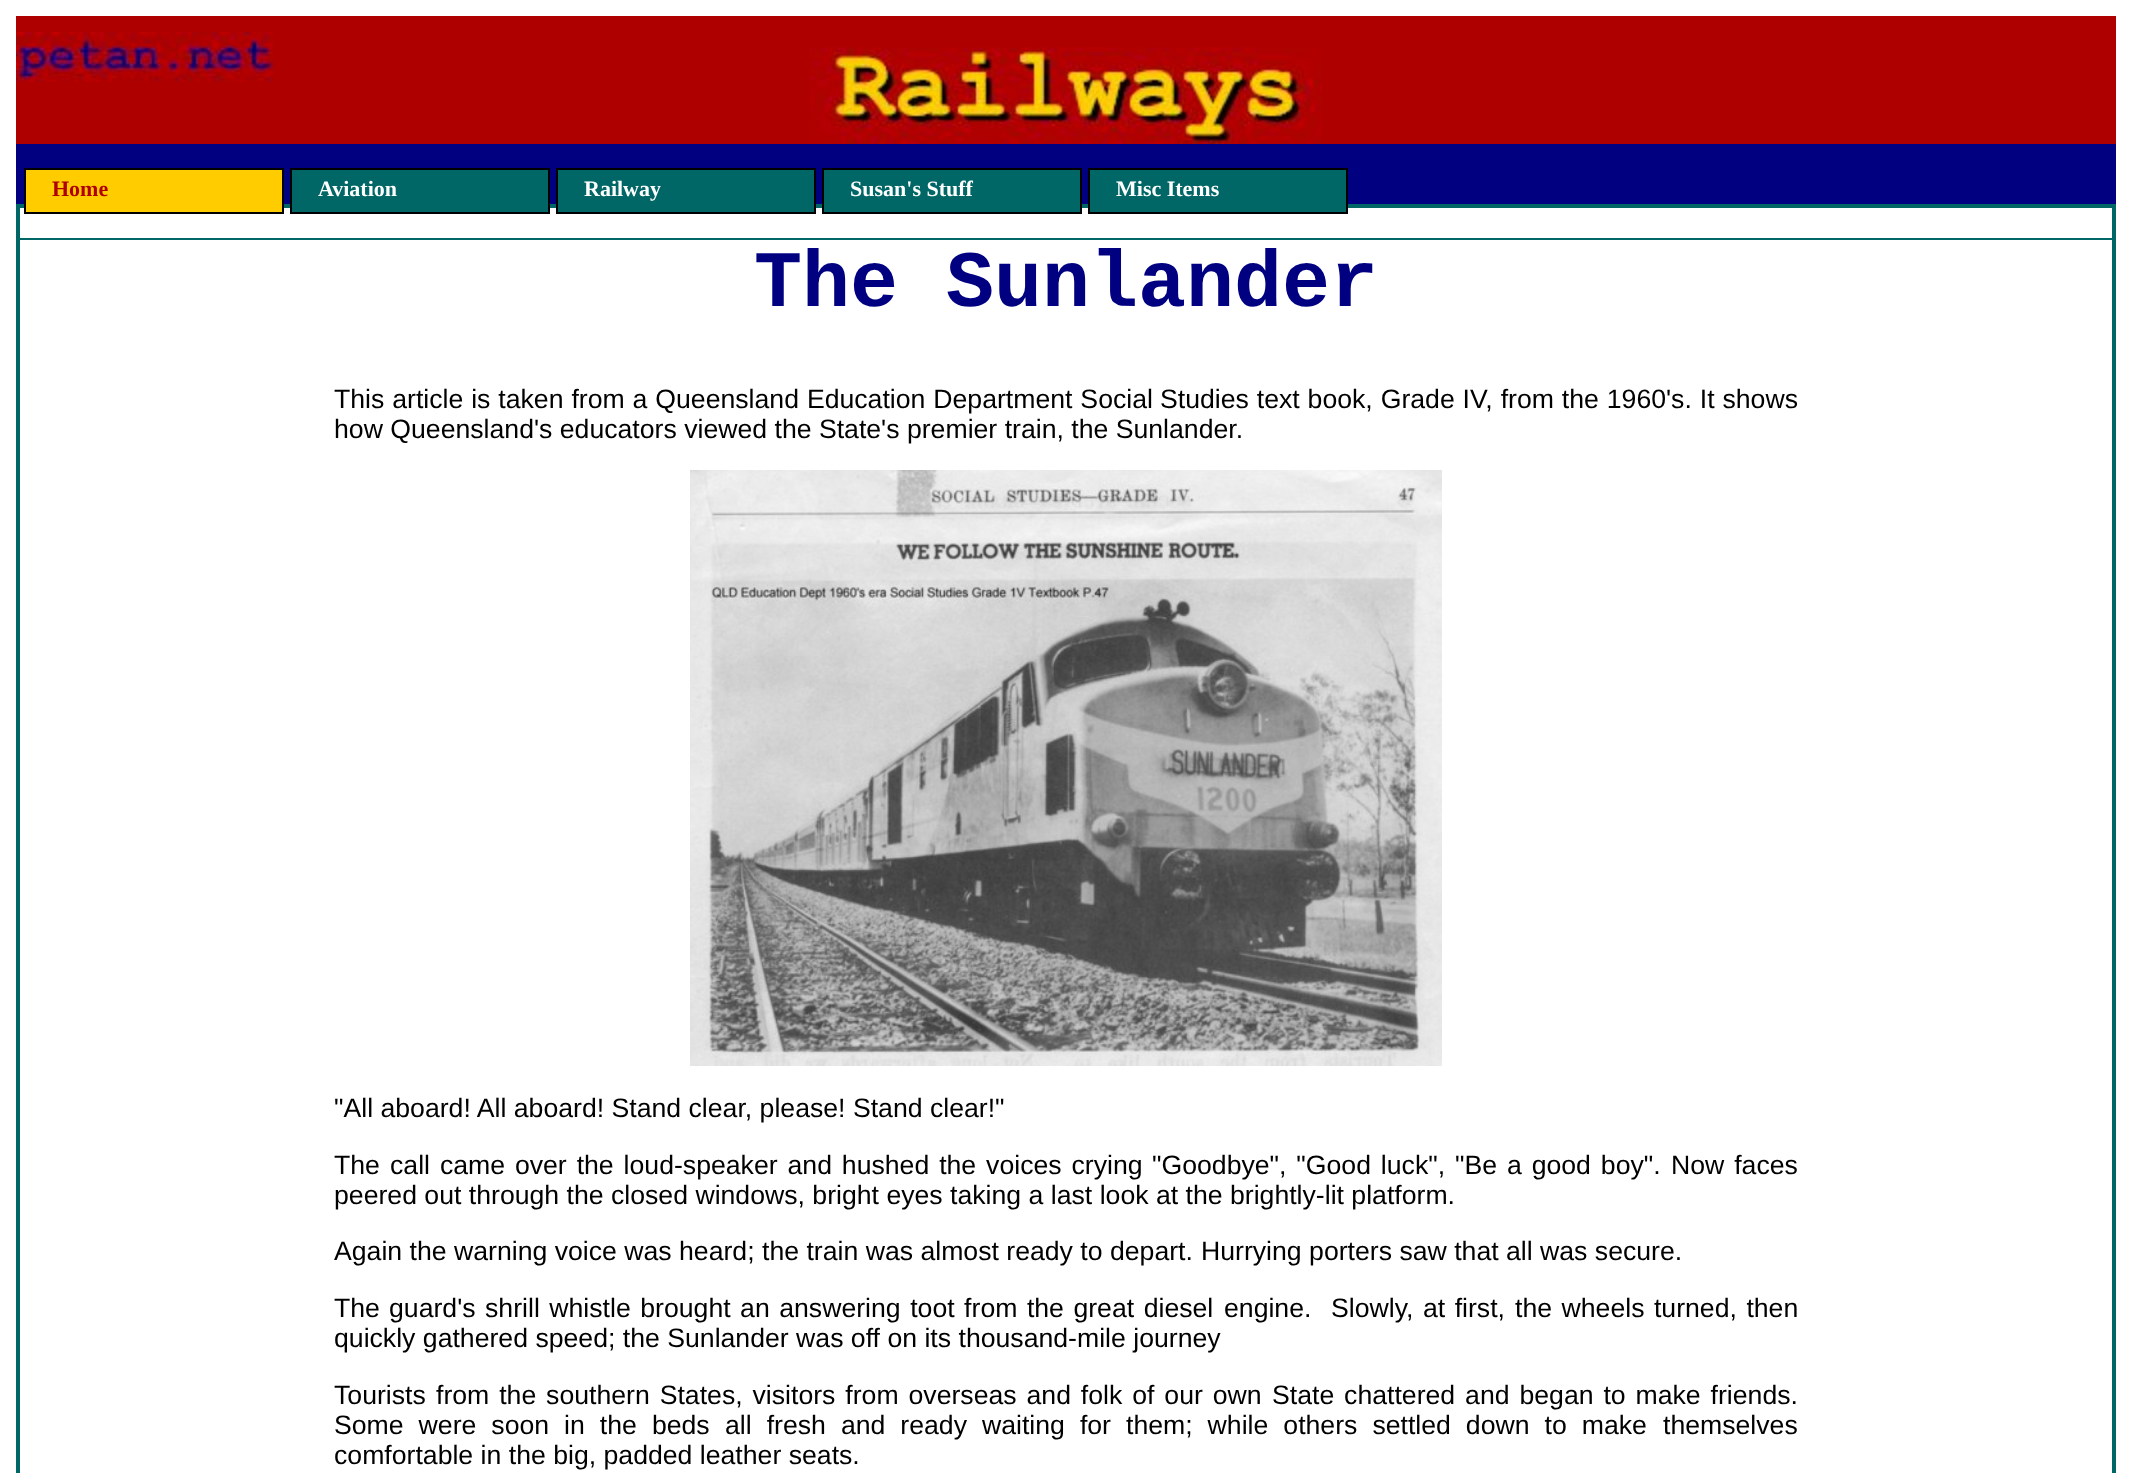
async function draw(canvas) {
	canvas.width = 2132;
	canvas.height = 1473;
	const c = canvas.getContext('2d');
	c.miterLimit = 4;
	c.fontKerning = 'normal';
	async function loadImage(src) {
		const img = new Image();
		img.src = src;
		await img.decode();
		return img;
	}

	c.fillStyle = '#fff';
	c.fillRect(0, 0, 2132, 1473);
	c.fillStyle = '#af0000';
	c.fillRect(16, 16, 2100, 128);
	c.drawImage(await loadImage('img1.png'), 16, 32, 259, 50);
	c.drawImage(await loadImage('img2.png'), 809, 47, 513, 97);
	c.fillStyle = '#000080';
	c.fillRect(16, 144, 2100, 60);
	c.fillStyle = '#066';
	c.fillRect(16, 204, 2100, 4);
	c.fillStyle = '#fc0';
	c.beginPath();
	c.rect(25, 169, 258, 44);
	c.fill();
	c.strokeStyle = '#000';
	c.lineWidth = 2;
	c.stroke();
	c.font = 'bold 22px Liberation Serif';
	c.fillStyle = '#af0000';
	c.fillText('Home', 52, 196);
	c.fillStyle = '#066';
	c.beginPath();
	c.rect(291, 169, 258, 44);
	c.fill();
	c.stroke();
	c.fillStyle = '#fff';
	c.fillText('Aviation', 318, 196);
	c.fillStyle = '#066';
	c.beginPath();
	c.rect(557, 169, 258, 44);
	c.fill();
	c.stroke();
	c.fillStyle = '#fff';
	c.fillText('Railway', 584, 196);
	c.fillStyle = '#066';
	c.beginPath();
	c.rect(823, 169, 258, 44);
	c.fill();
	c.stroke();
	c.fillStyle = '#fff';
	c.fillText('Susan\'s Stuff', 850, 196);
	c.fillStyle = '#066';
	c.beginPath();
	c.rect(1089, 169, 258, 44);
	c.fill();
	c.stroke();
	c.fillStyle = '#fff';
	c.fillText('Misc Items', 1116, 196);
	for (const [x, y, w, h, color] of [
		[18, 238, 2098, 2, '#066'],
		[2112, 204, 4, 1269, '#066'],
		[16, 204, 4, 1269, '#066'],
	]) {
		c.fillStyle = color;
		c.fillRect(x, y, w, h);
	}
	c.font = 'bold 80px Liberation Mono';
	c.fillStyle = '#000080';
	c.fillText('The Sunlander', 754, 306);
	c.wordSpacing = '0.5px';
	c.font = '26.65px Liberation Sans';
	c.fillStyle = '#000';
	c.fillText('This article is taken from a Queensland Education Department Social', 334, 408);
	c.fillText('Studies text book, Grade IV, from the 1960\'s. It shows', 1160, 408);
	c.wordSpacing = '0px';
	c.fillText('how Queensland\'s educators viewed the State\'s premier train, the Sunlander.', 334, 438);
	c.drawImage(await loadImage('img3.png'), 690, 470, 752, 596);
	c.fillText('"All aboard! All aboard! Stand clear, please! Stand clear!"', 334, 1117);
	c.fillText('The', 334, 1174);
	c.wordSpacing = '2.5px';
	for (const [text, x, y] of [
		['call came over the loud-speaker and hushed the voices crying', 390, 1174],
		['"Goodbye", "Good luck", "Be a good boy".', 1152, 1174],
		['Now faces', 1671, 1174],
	]) {
		c.fillText(text, x, y);
	}
	c.wordSpacing = '0px';
	for (const [text, x, y] of [
		['peered out through the closed windows, bright eyes taking a last look at the brightly-lit platform.', 334, 1204],
		['Again the warning voice was heard; the train was almost ready to depart.', 334, 1260],
		['Hurrying porters saw that all was secure.', 1201, 1260],
		['The', 334, 1317],
	]) {
		c.fillText(text, x, y);
	}
	c.wordSpacing = '2.1px';
	c.fillText('guard\'s shrill whistle brought an answering toot from the great diesel', 389, 1317);
	c.wordSpacing = '0px';
	c.fillText('engine.', 1224, 1317);
	c.wordSpacing = '2.1px';
	c.fillText('Slowly, at first,', 1331, 1317);
	c.fillText('the wheels turned, then', 1515, 1317);
	c.wordSpacing = '0px';
	c.fillText('quickly gathered speed; the Sunlander was off on its thousand-mile journey', 334, 1347);
	c.fillText('Tourists', 334, 1404);
	c.wordSpacing = '2.5px';
	c.fillText('from the southern States, visitors from overseas and folk of our own', 436, 1404);
	c.fillText('State chattered and began to make friends.', 1272, 1404);
	c.wordSpacing = '7.6px';
	c.fillText('Some were soon in the beds', 334, 1434);
	c.fillText('all fresh and ready waiting for them; while others settled down to make', 725, 1434);
	c.wordSpacing = '0px';
	c.fillText('themselves', 1663, 1434);
	c.fillText('comfortable in the big, padded leather seats.', 334, 1464);
}

draw(document.querySelector('canvas'));
